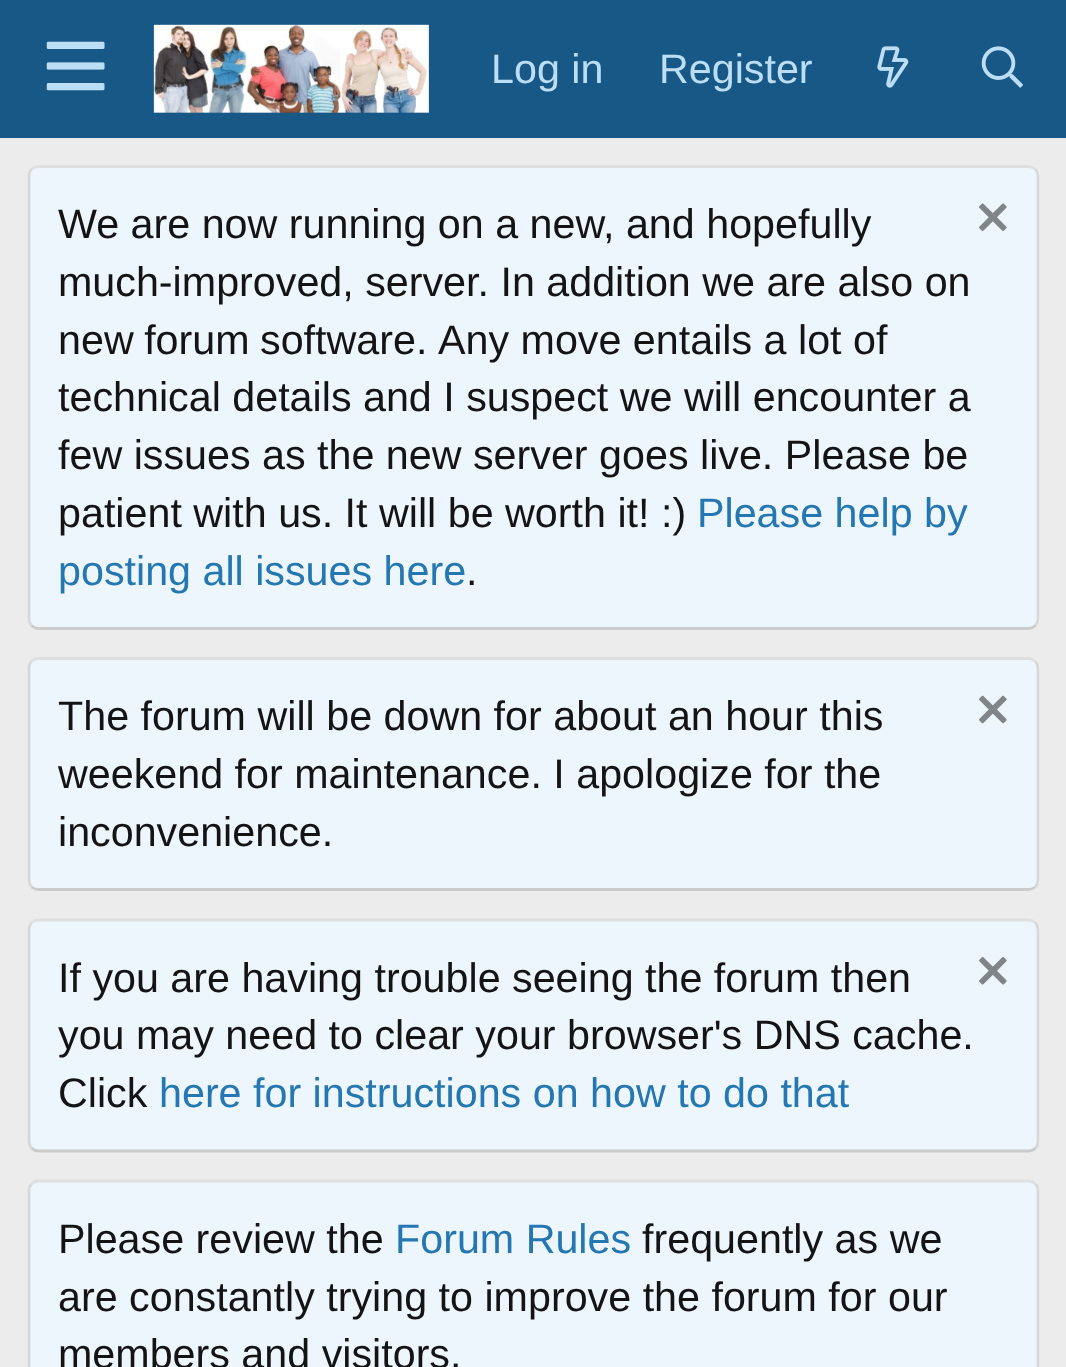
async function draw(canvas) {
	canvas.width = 1066;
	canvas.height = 1367;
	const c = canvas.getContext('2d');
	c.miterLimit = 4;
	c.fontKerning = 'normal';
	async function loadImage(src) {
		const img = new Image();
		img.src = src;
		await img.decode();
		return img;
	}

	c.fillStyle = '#ececec';
	c.fillRect(0, 0, 1066, 1367);
	c.fillStyle = '#185886';
	c.fillRect(0, 0, 1066, 138);
	c.drawImage(await loadImage('img1.png'), 46, 41, 59, 50);
	c.drawImage(await loadImage('img2.png'), 153, 24, 276, 89);
	c.font = '41.25px Liberation Sans';
	c.fillStyle = '#bcdef5';
	c.fillText('Log in', 491, 83);
	c.fillText('Register', 659, 83);
	c.drawImage(await loadImage('img3.png'), 877, 46, 32, 42);
	c.drawImage(await loadImage('img4.png'), 981, 46, 42, 42);
	c.fillStyle = '#edf6fd';
	c.beginPath();
	c.roundRect(28, 165, 1012, 465, 11);
	c.fill();
	c.beginPath();
	c.moveTo(31.5, 169);
	c.bezierCurveTo(33.5, 167.5, 36, 166.5, 38.5, 166.5);
	c.lineTo(1028.5, 166.5);
	c.bezierCurveTo(1031, 166.5, 1033.5, 167.5, 1035.5, 169);
	c.strokeStyle = '#dfdfdf';
	c.lineWidth = 2.8;
	c.stroke();
	c.beginPath();
	c.moveTo(1035.5, 169);
	c.bezierCurveTo(1037, 171, 1038, 173.5, 1038, 176);
	c.lineTo(1038, 619);
	c.bezierCurveTo(1038, 621.5, 1037, 624, 1035.5, 625.5);
	c.strokeStyle = '#d8d8d8';
	c.stroke();
	c.beginPath();
	c.moveTo(1035.5, 625.5);
	c.bezierCurveTo(1033.5, 627.5, 1031, 628.5, 1028.5, 628.5);
	c.lineTo(38.5, 628.5);
	c.bezierCurveTo(36, 628.5, 33.5, 627.5, 31.5, 625.5);
	c.strokeStyle = '#cbcbcb';
	c.stroke();
	c.beginPath();
	c.moveTo(31.5, 625.5);
	c.bezierCurveTo(30, 624, 29, 621.5, 29, 619);
	c.lineTo(29, 176);
	c.bezierCurveTo(29, 173.5, 30, 171, 31.5, 169);
	c.strokeStyle = '#d8d8d8';
	c.stroke();
	c.fillStyle = '#141414';
	c.fillText('We are now running on a new, and hopefully', 58, 238);
	c.drawImage(await loadImage('img5.png'), 979, 203, 28, 28);
	c.fillText('much-improved, server. In addition we are also on', 58, 296);
	c.wordSpacing = '-1px';
	c.fillText('new forum software.', 58, 354);
	c.wordSpacing = '0px';
	for (const [text, x, y] of [
		['Any move entails a lot of', 438, 354],
		['technical details and I suspect we will encounter a', 58, 411],
		['few issues as the new server goes live. Please be', 58, 469],
		['patient with us. It will be worth it! :)', 58, 527],
	]) {
		c.fillText(text, x, y);
	}
	c.fillStyle = '#2577b1';
	c.fillText('Please help by', 697, 527);
	c.fillText('posting all issues here', 58, 585);
	c.fillStyle = '#141414';
	c.fillText('.', 466, 585);
	c.fillStyle = '#edf6fd';
	c.beginPath();
	c.roundRect(28, 657, 1012, 234, 11);
	c.fill();
	c.beginPath();
	c.moveTo(31.5, 661.5);
	c.bezierCurveTo(33.5, 659.5, 36, 658.5, 38.5, 658.5);
	c.lineTo(1028.5, 658.5);
	c.bezierCurveTo(1031, 658.5, 1033.5, 659.5, 1035.5, 661.5);
	c.strokeStyle = '#dfdfdf';
	c.stroke();
	c.beginPath();
	c.moveTo(1035.5, 661.5);
	c.bezierCurveTo(1037, 663, 1038, 665.5, 1038, 668);
	c.lineTo(1038, 880);
	c.bezierCurveTo(1038, 882.5, 1037, 885, 1035.5, 887);
	c.strokeStyle = '#d8d8d8';
	c.stroke();
	c.beginPath();
	c.moveTo(1035.5, 887);
	c.bezierCurveTo(1033.5, 888.5, 1031, 889.5, 1028.5, 889.5);
	c.lineTo(38.5, 889.5);
	c.bezierCurveTo(36, 889.5, 33.5, 888.5, 31.5, 887);
	c.strokeStyle = '#cbcbcb';
	c.stroke();
	c.beginPath();
	c.moveTo(31.5, 887);
	c.bezierCurveTo(30, 885, 29, 882.5, 29, 880);
	c.lineTo(29, 668);
	c.bezierCurveTo(29, 665.5, 30, 663, 31.5, 661.5);
	c.strokeStyle = '#d8d8d8';
	c.stroke();
	c.fillStyle = '#141414';
	c.fillText('The forum will be down for about an hour this', 58, 730);
	c.drawImage(await loadImage('img6.png'), 979, 695, 28, 29);
	c.fillText('weekend for maintenance. I apologize for the', 58, 788);
	c.fillText('inconvenience.', 58, 846);
	c.fillStyle = '#edf6fd';
	c.beginPath();
	c.roundRect(28, 919, 1012, 233, 11);
	c.fill();
	c.beginPath();
	c.moveTo(31.5, 922.5);
	c.bezierCurveTo(33.5, 921, 36, 920, 38.5, 920);
	c.lineTo(1028.5, 920);
	c.bezierCurveTo(1031, 920, 1033.5, 921, 1035.5, 922.5);
	c.strokeStyle = '#dfdfdf';
	c.stroke();
	c.beginPath();
	c.moveTo(1035.5, 922.5);
	c.bezierCurveTo(1037, 924.5, 1038, 927, 1038, 929.5);
	c.lineTo(1038, 1141);
	c.bezierCurveTo(1038, 1144, 1037, 1146.5, 1035.5, 1148);
	c.strokeStyle = '#d8d8d8';
	c.stroke();
	c.beginPath();
	c.moveTo(1035.5, 1148);
	c.bezierCurveTo(1033.5, 1150, 1031, 1151, 1028.5, 1151);
	c.lineTo(38.5, 1151);
	c.bezierCurveTo(36, 1151, 33.5, 1150, 31.5, 1148);
	c.strokeStyle = '#cbcbcb';
	c.stroke();
	c.beginPath();
	c.moveTo(31.5, 1148);
	c.bezierCurveTo(30, 1146.5, 29, 1144, 29, 1141);
	c.lineTo(29, 929.5);
	c.bezierCurveTo(29, 927, 30, 924.5, 31.5, 922.5);
	c.strokeStyle = '#d8d8d8';
	c.stroke();
	c.fillStyle = '#141414';
	c.fillText('If you are having trouble seeing the forum then', 58, 992);
	c.drawImage(await loadImage('img7.png'), 979, 957, 28, 28);
	c.fillText('you may need to clear your browser\'s DNS cache.', 58, 1049);
	c.fillText('Click', 58, 1107);
	c.fillStyle = '#2577b1';
	c.fillText('here for instructions on how to do that', 159, 1107);
	c.fillStyle = '#edf6fd';
	c.beginPath();
	c.roundRect(28, 1180, 1012, 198, 11);
	c.fill();
	c.beginPath();
	c.moveTo(31.5, 1184);
	c.bezierCurveTo(33.5, 1182, 36, 1181, 38.5, 1181);
	c.lineTo(1028.5, 1181);
	c.bezierCurveTo(1031, 1181, 1033.5, 1182, 1035.5, 1184);
	c.strokeStyle = '#dfdfdf';
	c.stroke();
	c.beginPath();
	c.moveTo(1035.5, 1184);
	c.bezierCurveTo(1037, 1185.5, 1038, 1188, 1038, 1191);
	c.lineTo(1038, 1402.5);
	c.bezierCurveTo(1038, 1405, 1037, 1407.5, 1035.5, 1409.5);
	c.strokeStyle = '#d8d8d8';
	c.stroke();
	c.beginPath();
	c.moveTo(31.5, 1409.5);
	c.bezierCurveTo(30, 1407.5, 29, 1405, 29, 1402.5);
	c.lineTo(29, 1191);
	c.bezierCurveTo(29, 1188, 30, 1185.5, 31.5, 1184);
	c.stroke();
	c.fillStyle = '#141414';
	c.fillText('Please review the', 58, 1253);
	c.fillStyle = '#2577b1';
	c.fillText('Forum Rules', 395, 1253);
	c.fillStyle = '#141414';
	for (const [text, x, y] of [
		['frequently as we', 642, 1253],
		['are constantly trying to improve the forum for our', 58, 1311],
		['members and visitors.', 58, 1368],
	]) {
		c.fillText(text, x, y);
	}
}

draw(document.querySelector('canvas'));
